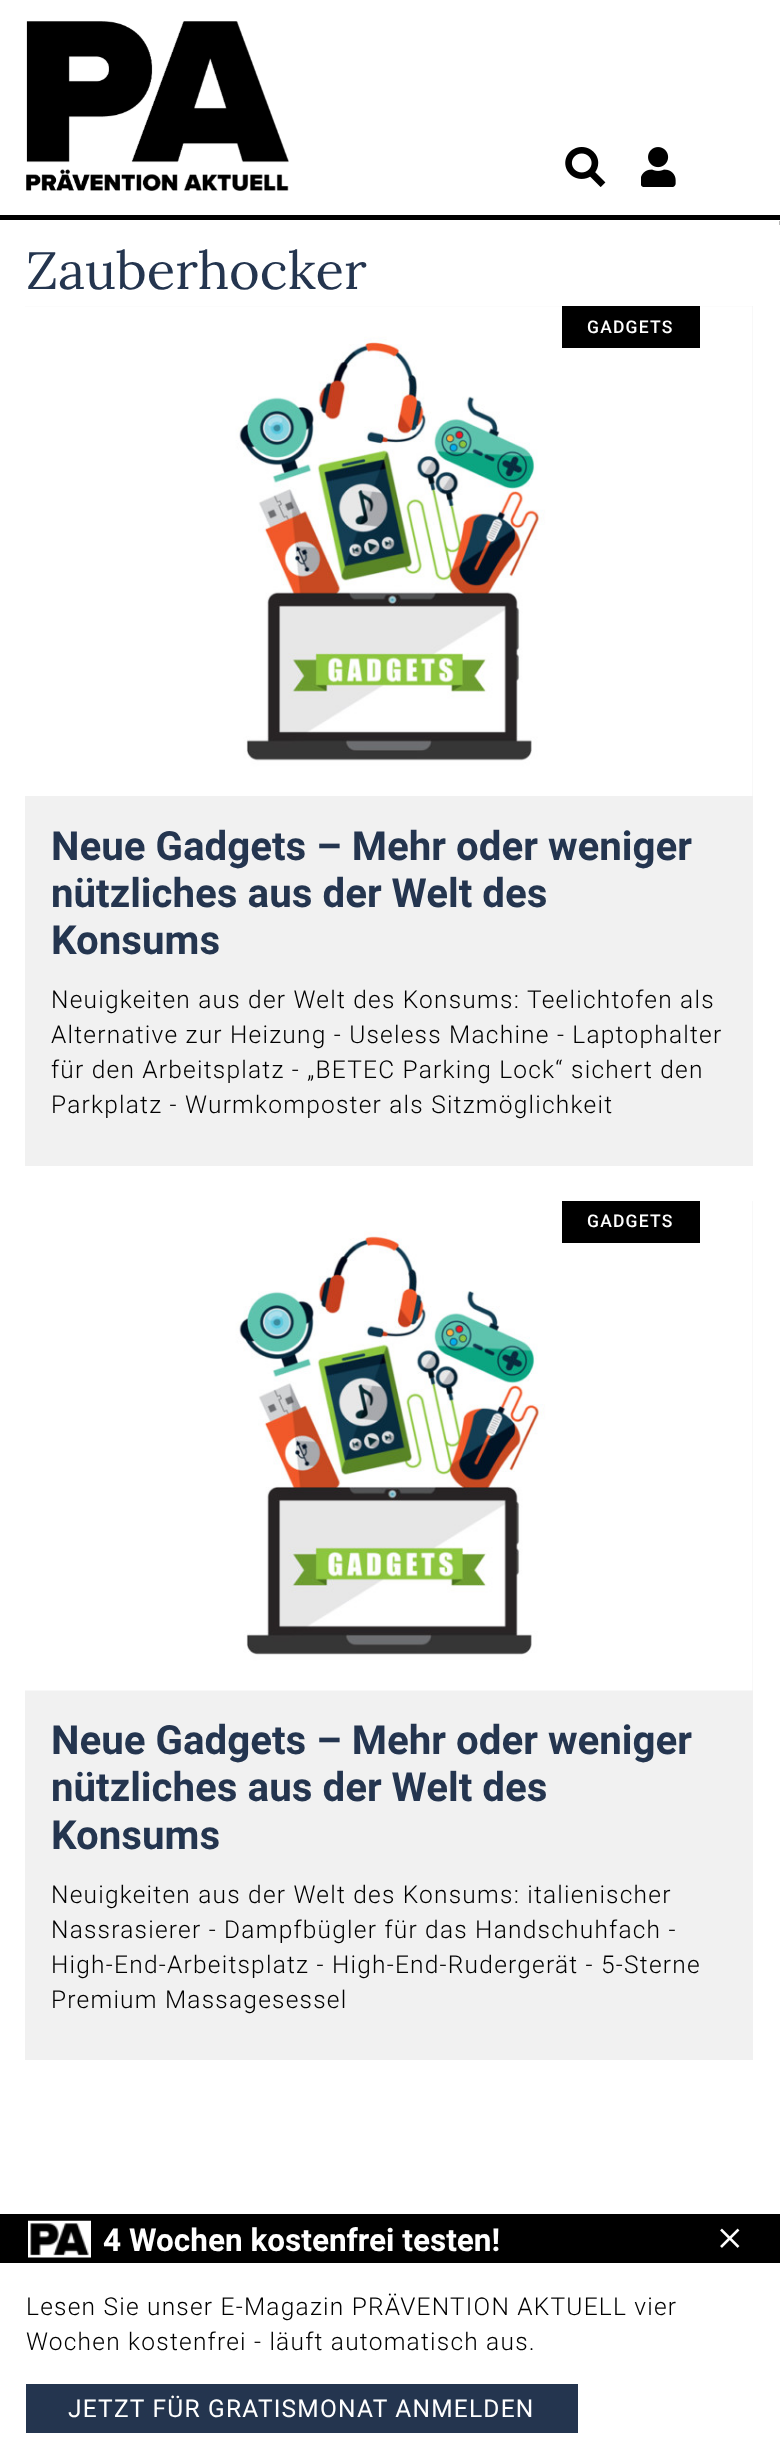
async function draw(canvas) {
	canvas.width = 780;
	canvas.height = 2461;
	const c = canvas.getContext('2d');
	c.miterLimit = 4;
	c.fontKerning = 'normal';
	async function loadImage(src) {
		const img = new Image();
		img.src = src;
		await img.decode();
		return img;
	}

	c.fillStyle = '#fff';
	c.fillRect(0, 0, 780, 2461);
	c.fillStyle = '#000';
	c.fillRect(0, 215, 780, 5);
	c.drawImage(await loadImage('img1.png'), 26, 21, 263, 170);
	c.drawImage(await loadImage('img2.png'), 565, 147, 41, 40);
	c.drawImage(await loadImage('img3.png'), 641, 147, 35, 40);
	c.fillStyle = '#bbb';
	c.fillRect(779, 221, 1, 4);
	c.font = '52.5px Lora';
	c.fillStyle = '#24354f';
	c.fillText('Zauberhocker', 26, 289);
	c.fillStyle = '#f1f1f1';
	c.fillRect(25, 306, 728, 860);
	c.drawImage(await loadImage('img4.png'), 25, 306, 728, 490);
	c.fillStyle = '#000';
	c.fillRect(562, 306, 138, 42);
	c.letterSpacing = '1.22px';
	c.font = '500 17.5px Roboto';
	c.fillStyle = '#fff';
	c.fillText('GADGETS', 587, 333);
	c.letterSpacing = '0px';
	c.font = 'bold 40.25px Roboto';
	c.fillStyle = '#24354f';
	for (const [text, x, y] of [
		['Neue Gadgets – Mehr oder weniger', 51, 860],
		['nützliches aus der Welt des', 51, 907],
		['Konsums', 51, 954],
	]) {
		c.fillText(text, x, y);
	}
	c.letterSpacing = '1.22px';
	c.font = '300 24.5px Roboto';
	c.fillStyle = '#000';
	for (const [text, x, y] of [
		['Neuigkeiten aus der Welt des Konsums:', 51, 1008],
		['Teelichtofen als', 527, 1008],
		['Alternative zur Heizung - Useless Machine - Laptophalter', 51, 1043],
		['für den Arbeitsplatz - „BETEC Parking Lock“ sichert den', 51, 1078],
		['Parkplatz - Wurmkomposter als Sitzmöglichkeit', 51, 1113],
	]) {
		c.fillText(text, x, y);
	}
	c.fillStyle = '#f1f1f1';
	c.fillRect(25, 1201, 728, 859);
	c.drawImage(await loadImage('img5.png'), 25, 1201, 728, 490);
	c.fillStyle = '#000';
	c.fillRect(562, 1201, 138, 42);
	c.font = '500 17.5px Roboto';
	c.fillStyle = '#fff';
	c.fillText('GADGETS', 587, 1227);
	c.letterSpacing = '0px';
	c.font = 'bold 40.25px Roboto';
	c.fillStyle = '#24354f';
	for (const [text, x, y] of [
		['Neue Gadgets – Mehr oder weniger', 51, 1754],
		['nützliches aus der Welt des', 51, 1801],
		['Konsums', 51, 1849],
	]) {
		c.fillText(text, x, y);
	}
	c.letterSpacing = '1.22px';
	c.font = '300 24.5px Roboto';
	c.fillStyle = '#000';
	for (const [text, x, y] of [
		['Neuigkeiten aus der Welt des Konsums: italienischer', 51, 1903],
		['Nassrasierer - Dampfbügler für das Handschuhfach -', 51, 1938],
		['High-End-Arbeitsplatz - High-End-Rudergerät - 5-Sterne', 51, 1973],
		['Premium Massagesessel', 51, 2008],
	]) {
		c.fillText(text, x, y);
	}
	c.fillRect(0, 2214, 780, 49);
	c.drawImage(await loadImage('img6.png'), 28, 2220, 63, 38);
	c.letterSpacing = '0px';
	c.font = 'bold 31.5px Roboto';
	c.fillStyle = '#fff';
	c.fillText('4 Wochen kostenfrei testen!', 103, 2251);
	c.drawImage(await loadImage('img7.png'), 720, 2228, 20, 20);
	c.letterSpacing = '1.22px';
	c.font = '300 24.5px Roboto';
	c.fillStyle = '#000';
	c.fillText('Lesen Sie unser E-Magazin PRÄVENTION AKTUELL vier', 26, 2315);
	c.fillText('Wochen kostenfrei - läuft automatisch aus.', 26, 2350);
	c.fillStyle = '#24354f';
	c.fillRect(26, 2384, 552, 49);
	c.font = '24.5px Roboto';
	c.fillStyle = '#fff';
	c.fillText('JETZT FÜR GRATISMONAT ANMELDEN', 68, 2417);
}

draw(document.querySelector('canvas'));
